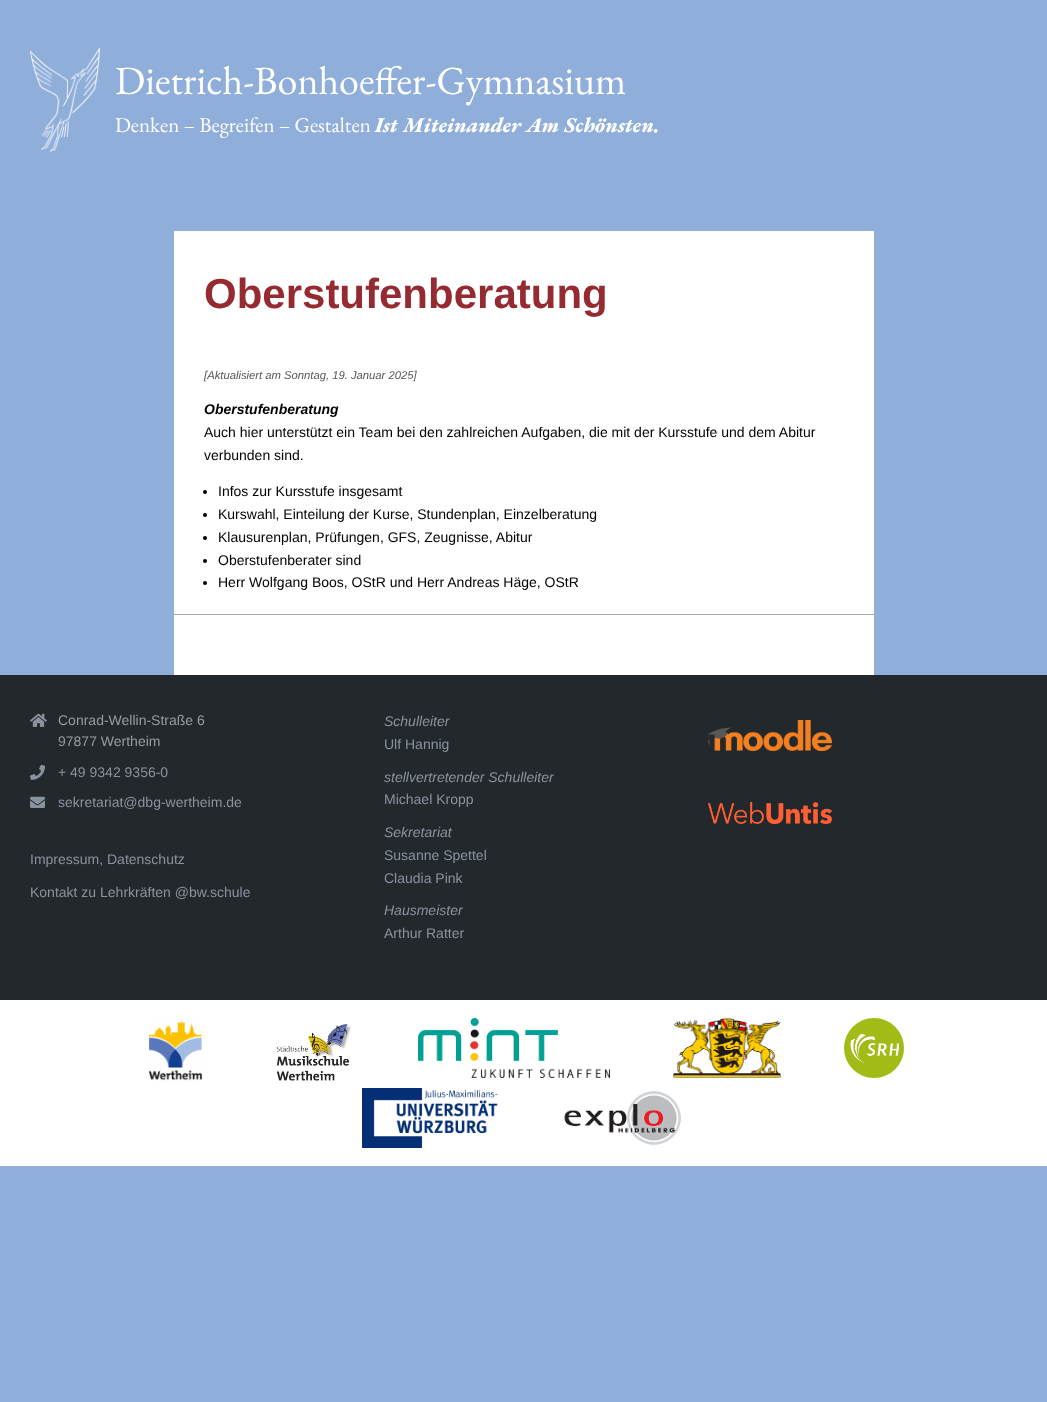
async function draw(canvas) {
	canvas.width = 1047;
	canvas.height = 1402;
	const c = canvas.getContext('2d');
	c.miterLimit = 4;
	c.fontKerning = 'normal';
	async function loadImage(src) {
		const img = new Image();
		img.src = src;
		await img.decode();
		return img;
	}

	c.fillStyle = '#90aeda';
	c.fillRect(0, 0, 1047, 1402);
	c.drawImage(await loadImage('img1.png'), 30, 47, 70, 105);
	c.font = '40px EB Garamond';
	c.fillStyle = '#fff';
	c.fillText('Dietrich-Bonhoeffer-Gymnasium', 115, 94);
	c.font = '21px EB Garamond';
	c.fillText('Denken – Begreifen – Gestalten', 115, 132);
	c.font = 'italic 800 21px EB Garamond';
	c.fillText('Ist Miteinander Am Schönsten.', 375, 132);
	c.fillRect(174, 231, 700, 444);
	c.font = 'bold 42px Liberation Sans';
	c.fillStyle = '#952a31';
	c.fillText('Oberstufenberatung', 204, 308);
	c.fillStyle = '#ababab';
	c.fillRect(174, 614, 700, 1);
	c.font = 'italic 11.25px Liberation Sans';
	c.fillStyle = '#555';
	c.fillText('[Aktualisiert am Sonntag, 19. Januar 2025]', 204, 379);
	c.font = 'italic bold 14px Liberation Sans';
	c.fillStyle = '#000';
	c.fillText('Oberstufenberatung', 204, 414);
	c.font = '14px Liberation Sans';
	c.fillText('Auch hier unterstützt ein Team bei den zahlreichen Aufgaben, die mit der Kursstufe und dem Abitur', 204, 437);
	c.fillText('verbunden sind.', 204, 460);
	c.beginPath();
	c.arc(205, 492, 2, 0, 2 * Math.PI);
	c.fill();
	c.fillText('Infos zur Kursstufe insgesamt', 218, 496);
	c.beginPath();
	c.arc(205, 515, 2, 0, 2 * Math.PI);
	c.fill();
	c.fillText('Kurswahl, Einteilung der Kurse, Stundenplan, Einzelberatung', 218, 519);
	c.beginPath();
	c.arc(205, 538, 2, 0, 2 * Math.PI);
	c.fill();
	c.fillText('Klausurenplan, Prüfungen, GFS, Zeugnisse, Abitur', 218, 542);
	c.beginPath();
	c.arc(205, 561, 2, 0, 2 * Math.PI);
	c.fill();
	c.fillText('Oberstufenberater sind', 218, 565);
	c.beginPath();
	c.arc(205, 583, 2, 0, 2 * Math.PI);
	c.fill();
	c.fillText('Herr Wolfgang Boos, OStR und Herr Andreas Häge, OStR', 218, 587);
	c.fillStyle = '#23282d';
	c.fillRect(0, 675, 1047, 325);
	c.drawImage(await loadImage('img2.png'), 30, 713, 17, 14);
	c.fillStyle = '#999c9e';
	c.fillText('Conrad-Wellin-Straße 6', 58, 725);
	c.fillText('97877 Wertheim', 58, 746);
	c.drawImage(await loadImage('img3.png'), 30, 764, 15, 16);
	c.fillStyle = '#88939e';
	c.fillText('+ 49 9342 9356-0', 58, 777);
	c.drawImage(await loadImage('img4.png'), 30, 796, 15, 12);
	for (const [text, x, y] of [
		['sekretariat@dbg-wertheim.de', 58, 807],
		['Impressum, Datenschutz', 30, 864],
		['Kontakt zu Lehrkräften @bw.schule', 30, 897],
	]) {
		c.fillText(text, x, y);
	}
	c.font = 'italic 14px Liberation Sans';
	c.fillText('Schulleiter', 384, 726);
	c.font = '14px Liberation Sans';
	c.fillText('Ulf Hannig', 384, 749);
	c.font = 'italic 14px Liberation Sans';
	c.fillText('stellvertretender Schulleiter', 384, 782);
	c.font = '14px Liberation Sans';
	c.fillText('Michael Kropp', 384, 804);
	c.font = 'italic 14px Liberation Sans';
	c.fillText('Sekretariat', 384, 837);
	c.font = '14px Liberation Sans';
	c.fillText('Susanne Spettel', 384, 860);
	c.fillText('Claudia Pink', 384, 883);
	c.font = 'italic 14px Liberation Sans';
	c.fillText('Hausmeister', 384, 915);
	c.font = '14px Liberation Sans';
	c.fillText('Arthur Ratter', 384, 938);
	c.drawImage(await loadImage('img5.png'), 708, 720, 124, 31);
	c.drawImage(await loadImage('img6.png'), 708, 802, 124, 22);
	c.fillStyle = '#fff';
	c.fillRect(0, 1000, 1047, 166);
	c.drawImage(await loadImage('img7.png'), 148, 1021, 55, 60);
	c.drawImage(await loadImage('img8.png'), 276, 1023, 75, 58);
	c.drawImage(await loadImage('img9.png'), 418, 1018, 192, 60);
	c.drawImage(await loadImage('img10.png'), 673, 1018, 108, 60);
	c.drawImage(await loadImage('img11.png'), 844, 1018, 60, 60);
	c.drawImage(await loadImage('img12.png'), 362, 1088, 136, 60);
	c.drawImage(await loadImage('img13.png'), 564, 1090, 117, 55);
}

draw(document.querySelector('canvas'));
